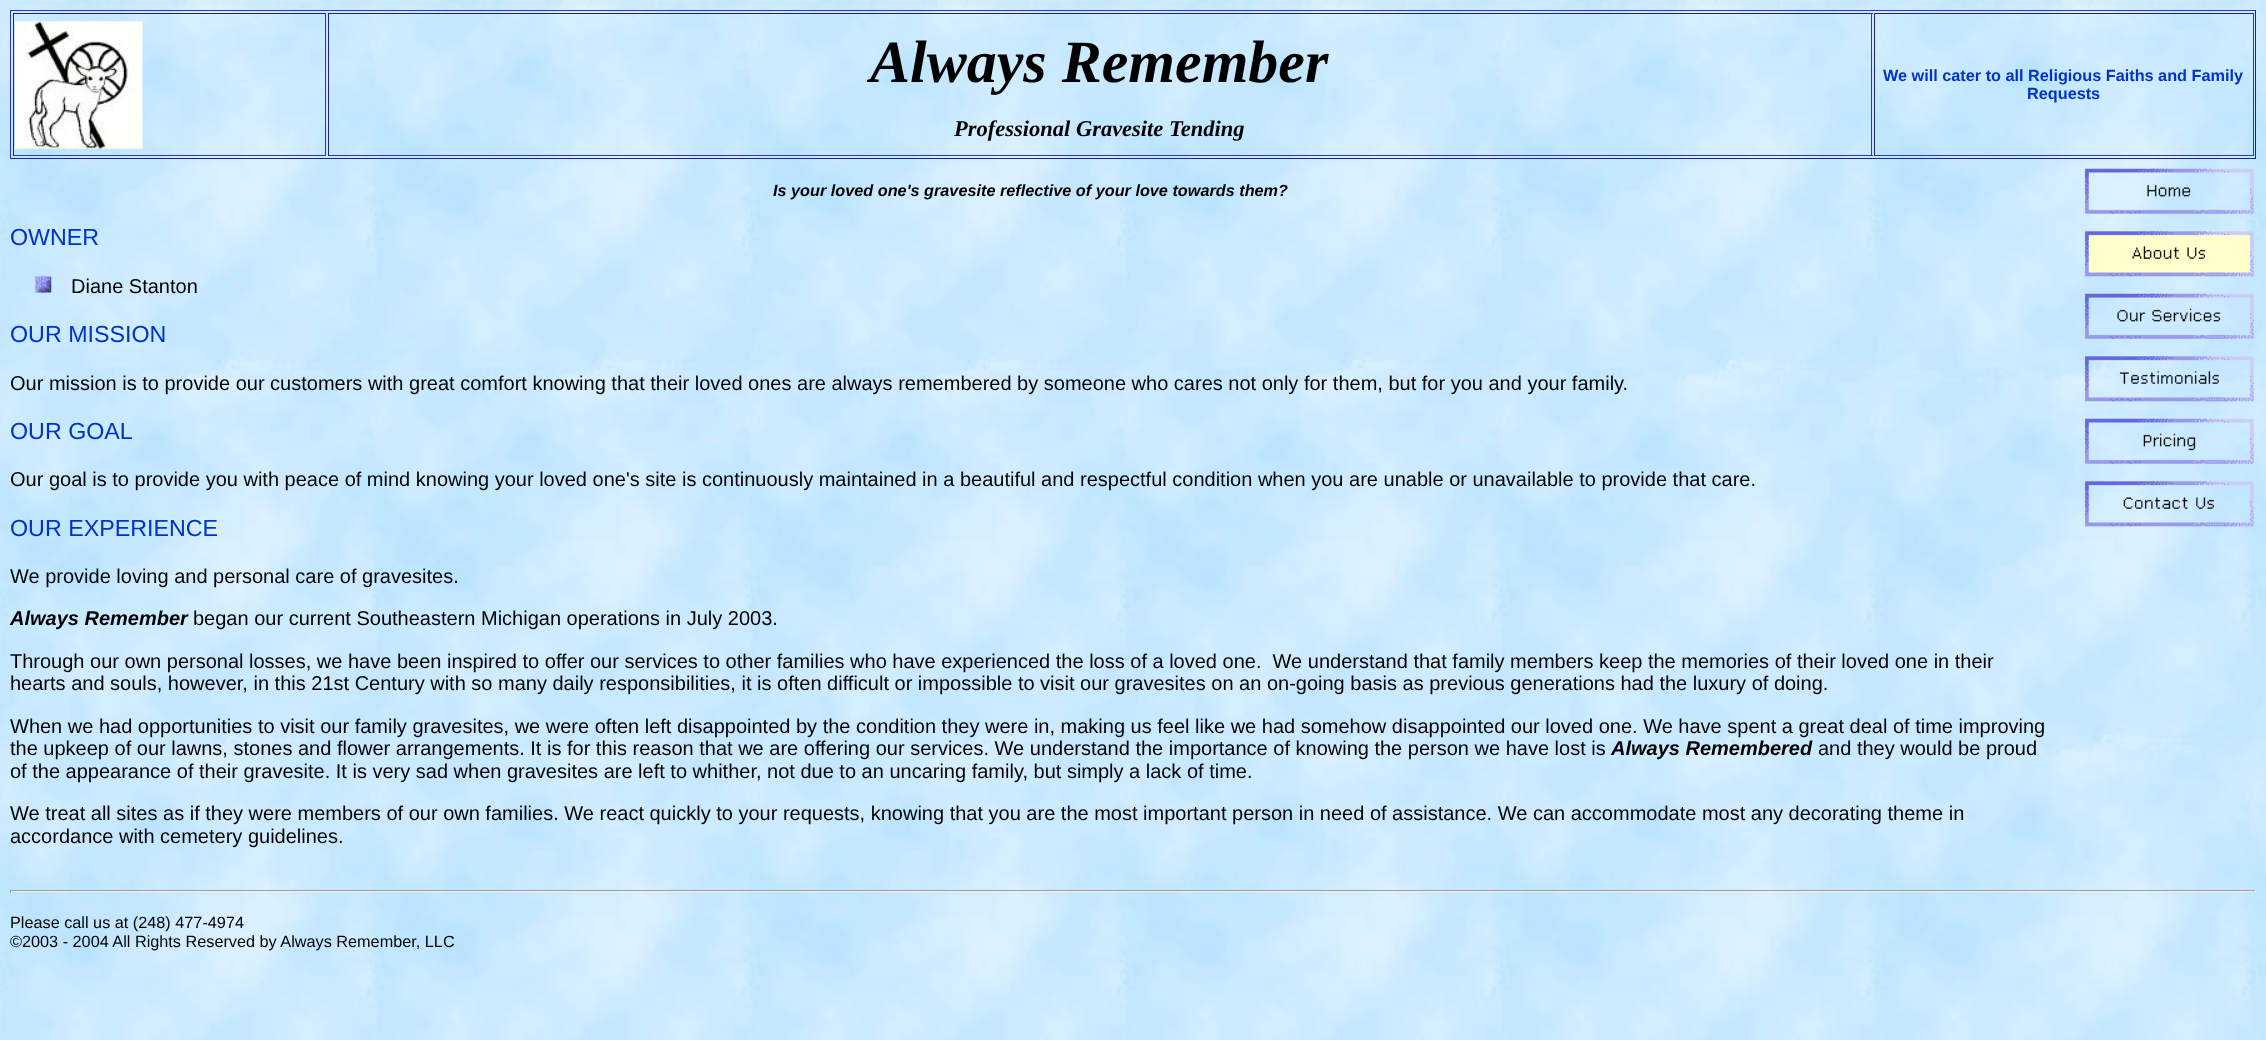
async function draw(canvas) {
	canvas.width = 2266;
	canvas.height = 1040;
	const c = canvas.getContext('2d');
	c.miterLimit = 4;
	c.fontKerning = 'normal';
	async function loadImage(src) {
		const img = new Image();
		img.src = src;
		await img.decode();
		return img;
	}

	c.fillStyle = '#fff';
	c.fillRect(0, 0, 2266, 1040);
	c.drawImage(await loadImage('img1.png'), 0, 0, 2266, 1040);
	for (const [x, y, w, h, color] of [
		[10, 10, 2246, 1, '#33c'],
		[2255, 10, 1, 149, '#228'],
		[10, 158, 2246, 1, '#228'],
		[10, 10, 1, 149, '#33c'],
		[13, 13, 313, 1, '#228'],
		[325, 13, 1, 143, '#33c'],
		[13, 155, 313, 1, '#33c'],
		[13, 13, 1, 143, '#228'],
	]) {
		c.fillStyle = color;
		c.fillRect(x, y, w, h);
	}
	c.drawImage(await loadImage('img2.png'), 15, 21, 128, 128);
	for (const [x, y, w, h, color] of [
		[328, 13, 1545, 1, '#228'],
		[1871, 13, 1, 143, '#33c'],
		[328, 155, 1545, 1, '#33c'],
		[328, 13, 1, 143, '#228'],
	]) {
		c.fillStyle = color;
		c.fillRect(x, y, w, h);
	}
	c.font = 'italic bold 60px Liberation Serif';
	c.fillStyle = '#000';
	c.fillText('Always Remember', 870, 82);
	c.font = 'italic bold 22.5px Liberation Serif';
	c.fillText('Professional Gravesite Tending', 954, 136);
	for (const [x, y, w, h, color] of [
		[1874, 13, 380, 1, '#228'],
		[2253, 13, 1, 143, '#33c'],
		[1874, 155, 380, 1, '#33c'],
		[1874, 13, 1, 143, '#228'],
	]) {
		c.fillStyle = color;
		c.fillRect(x, y, w, h);
	}
	c.font = 'bold 16.25px Liberation Sans';
	c.fillStyle = '#03c';
	c.fillText('We will cater to all Religious Faiths and Family', 1883, 81);
	c.fillText('Requests', 2027, 99);
	c.font = 'italic bold 16.25px Liberation Sans';
	c.fillStyle = '#000';
	c.fillText('Is your loved one\'s gravesite reflective of your love towards them?', 773, 196);
	c.font = '23.25px Liberation Sans';
	c.fillStyle = '#03c';
	c.fillText('OWNER', 10, 245);
	c.drawImage(await loadImage('img3.png'), 34, 276, 18, 17);
	c.font = '20px Liberation Sans';
	c.fillStyle = '#000';
	c.fillText('Diane Stanton', 71, 293);
	c.font = '23.25px Liberation Sans';
	c.fillStyle = '#03c';
	c.fillText('OUR MISSION', 10, 342);
	c.font = '20px Liberation Sans';
	c.fillStyle = '#000';
	c.fillText('Our mission is to provide our customers with great comfort knowing that their loved ones are always remembered by someone who cares not only for them, but for you and your family.', 10, 390);
	c.font = '23.25px Liberation Sans';
	c.fillStyle = '#03c';
	c.fillText('OUR GOAL', 10, 439);
	c.font = '20px Liberation Sans';
	c.fillStyle = '#000';
	c.fillText('Our goal is to provide you with peace of mind knowing your loved one\'s site is continuously maintained in a beautiful and respectful condition when you are unable or unavailable to provide that care.', 10, 486);
	c.font = '23.25px Liberation Sans';
	c.fillStyle = '#03c';
	c.fillText('OUR EXPERIENCE', 10, 536);
	c.font = '20px Liberation Sans';
	c.fillStyle = '#000';
	c.fillText('We provide loving and personal care of gravesites.', 10, 583);
	c.font = 'italic bold 20px Liberation Sans';
	c.fillText('Always Remember', 10, 625);
	c.font = '20px Liberation Sans';
	for (const [text, x, y] of [
		['began our current Southeastern Michigan operations in July 2003.', 193, 625],
		['Through our own personal losses, we have been inspired to offer our services to other families who have experienced the loss of a loved one.  We understand that family members keep the memories of their loved one in their', 10, 668],
		['hearts and souls, however, in this 21st Century with so many daily responsibilities, it is often difficult or impossible to visit our gravesites on an on-going basis as previous generations had the luxury of doing.', 10, 690],
		['When we had opportunities to visit our family gravesites, we were often left disappointed by the condition they were in, making us feel like we had somehow disappointed our loved one. We have spent a great deal of time improving', 10, 733],
		['the upkeep of our lawns, stones and flower arrangements. It is for this reason that we are offering our services. We understand the importance of knowing the person we have lost is', 10, 755],
	]) {
		c.fillText(text, x, y);
	}
	c.font = 'italic bold 20px Liberation Sans';
	c.fillText('Always Remembered', 1611, 755);
	c.font = '20px Liberation Sans';
	for (const [text, x, y] of [
		['and they would be proud', 1818, 755],
		['of the appearance of their gravesite. It is very sad when gravesites are left to whither, not due to an uncaring family, but simply a lack of time.', 10, 778],
		['We treat all sites as if they were members of our own families. We react quickly to your requests, knowing that you are the most important person in need of assistance. We can accommodate most any decorating theme in', 10, 820],
		['accordance with cemetery guidelines.', 10, 843],
	]) {
		c.fillText(text, x, y);
	}
	c.drawImage(await loadImage('img4.png'), 2084, 168, 170, 46);
	c.drawImage(await loadImage('img5.png'), 2084, 231, 170, 46);
	c.drawImage(await loadImage('img6.png'), 2084, 293, 170, 46);
	c.drawImage(await loadImage('img7.png'), 2084, 356, 170, 46);
	c.drawImage(await loadImage('img8.png'), 2084, 418, 170, 46);
	c.drawImage(await loadImage('img9.png'), 2084, 481, 170, 46);
	for (const [x, y, w, h, color] of [
		[10, 890, 2246, 1, '#9f9f9f'],
		[2255, 890, 1, 3, '#eee'],
		[10, 891, 2246, 1, '#eee'],
		[10, 890, 1, 3, '#9f9f9f'],
	]) {
		c.fillStyle = color;
		c.fillRect(x, y, w, h);
	}
	c.font = '16.25px Liberation Sans';
	c.fillStyle = '#000';
	c.fillText('Please call us at (248) 477-4974', 10, 928);
	c.fillText('©2003 - 2004 All Rights Reserved by Always Remember, LLC', 10, 947);
}

draw(document.querySelector('canvas'));
